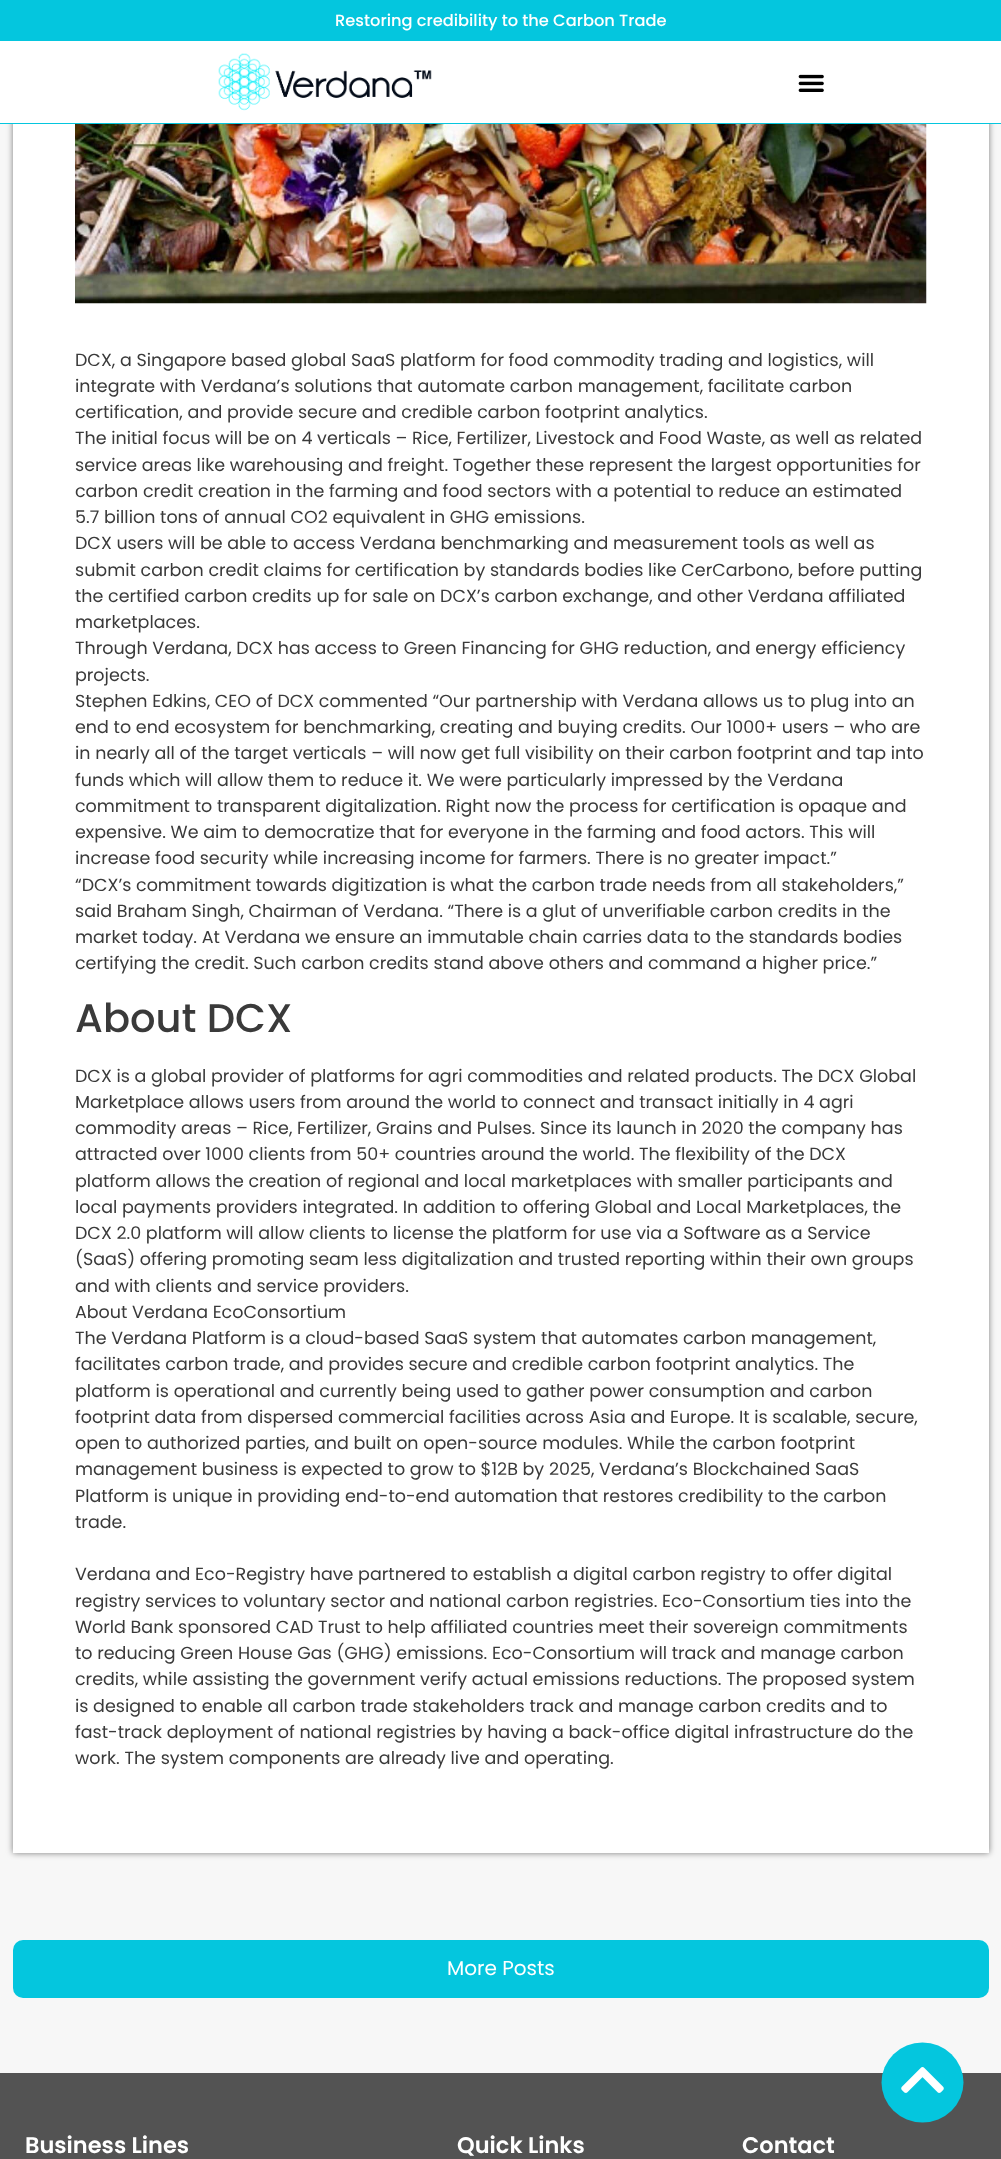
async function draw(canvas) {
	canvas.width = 1001;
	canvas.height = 2159;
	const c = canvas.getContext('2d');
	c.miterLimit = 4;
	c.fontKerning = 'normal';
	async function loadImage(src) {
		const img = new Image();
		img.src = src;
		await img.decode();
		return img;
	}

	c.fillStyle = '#f7f7f7';
	c.fillRect(0, 0, 1001, 2159);
	c.fillStyle = '#00000080';
	c.filter = 'blur(3px)';
	c.beginPath();
	c.rect(13, -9, 976, 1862);
	c.fill();
	c.filter = 'none';
	c.fillStyle = '#04c6de';
	c.fillRect(0, 0, 1001, 124);
	c.font = '500 16.25px Poppins';
	c.fillStyle = '#fff';
	c.fillText('Restoring credibility to the Carbon Trade', 335, 26);
	c.fillRect(0, 41, 1001, 82);
	c.drawImage(await loadImage('img1.png'), 218, 53, 214, 58);
	c.drawImage(await loadImage('img2.png'), 798, 74, 26, 18);
	c.fillRect(13, 124, 976, 1729);
	c.drawImage(await loadImage('img3.png'), 75, 124, 852, 180);
	c.font = '17.5px Poppins';
	c.fillStyle = '#3a3a3a';
	for (const [text, x, y] of [
		['DCX, a Singapore based global SaaS platform for food commodity trading and logistics, will', 75, 366],
		['integrate with Verdana’s solutions that automate carbon management, facilitate carbon', 75, 392],
		['certification, and provide secure and credible carbon footprint analytics.', 75, 418],
		['The initial focus will be on 4 verticals – Rice, Fertilizer, Livestock and Food Waste, as well as related', 75, 444],
		['service areas like warehousing and freight. Together these represent the largest opportunities for', 75, 471],
		['carbon credit creation in the farming and food sectors with a potential to reduce an estimated', 75, 497],
		['5.7 billion tons of annual CO2 equivalent in GHG emissions.', 75, 523],
		['DCX users will be able to access Verdana benchmarking and measurement tools as well as', 75, 549],
		['submit carbon credit claims for certification by standards bodies like CerCarbono, before putting', 75, 576],
		['the certified carbon credits up for sale on DCX’s carbon exchange, and other Verdana affiliated', 75, 602],
		['marketplaces.', 75, 628],
		['Through Verdana, DCX has access to Green Financing for GHG reduction, and energy efficiency', 75, 654],
		['projects.', 75, 681],
		['Stephen Edkins, CEO of DCX commented “Our partnership with Verdana allows us to plug into an', 75, 707],
		['end to end ecosystem for benchmarking, creating and buying credits. Our 1000+ users – who are', 75, 733],
		['in nearly all of the target verticals – will now get full visibility on their carbon footprint and tap into', 75, 759],
		['funds which will allow them to reduce it. We were particularly impressed by the Verdana', 75, 786],
		['commitment to transparent digitalization. Right now the process for certification is opaque and', 75, 812],
		['expensive. We aim to democratize that for everyone in the farming and food actors. This will', 75, 838],
		['increase food security while increasing income for farmers. There is no greater impact.”', 75, 864],
		['“DCX’s commitment towards digitization is what the carbon trade needs from all stakeholders,”', 75, 891],
		['said Braham Singh, Chairman of Verdana. “There is a glut of unverifiable carbon credits in the', 75, 917],
		['market today. At Verdana we ensure an immutable chain carries data to the standards bodies', 75, 943],
		['certifying the credit. Such carbon credits stand above others and command a higher price.”', 75, 969],
	]) {
		c.fillText(text, x, y);
	}
	c.font = '500 40px Poppins';
	c.fillText('About DCX', 75, 1032);
	c.font = '17.5px Poppins';
	for (const [text, x, y] of [
		['DCX is a global provider of platforms for agri commodities and related products. The DCX Global', 75, 1082],
		['Marketplace allows users from around the world to connect and transact initially in 4 agri', 75, 1108],
		['commodity areas – Rice, Fertilizer, Grains and Pulses. Since its launch in 2020 the company has', 75, 1134],
		['attracted over 1000 clients from 50+ countries around the world. The flexibility of the DCX', 75, 1160],
		['platform allows the creation of regional and local marketplaces with smaller participants and', 75, 1187],
		['local payments providers integrated. In addition to offering Global and Local Marketplaces, the', 75, 1213],
		['DCX 2.0 platform will allow clients to license the platform for use via a Software as a Service', 75, 1239],
		['(SaaS) offering promoting seam less digitalization and trusted reporting within their own groups', 75, 1265],
		['and with clients and service providers.', 75, 1292],
		['About Verdana EcoConsortium', 75, 1318],
		['The Verdana Platform is a cloud-based SaaS system that automates carbon management,', 75, 1344],
		['facilitates carbon trade, and provides secure and credible carbon footprint analytics. The', 75, 1370],
		['platform is operational and currently being used to gather power consumption and carbon', 75, 1397],
		['footprint data from dispersed commercial facilities across Asia and Europe. It is scalable, secure,', 75, 1423],
		['open to authorized parties, and built on open-source modules. While the carbon footprint', 75, 1449],
		['management business is expected to grow to $12B by 2025, Verdana’s Blockchained SaaS', 75, 1475],
		['Platform is unique in providing end-to-end automation that restores credibility to the carbon', 75, 1502],
		['trade.', 75, 1528],
		['Verdana and Eco-Registry have partnered to establish a digital carbon registry to offer digital', 75, 1580],
		['registry services to voluntary sector and national carbon registries. Eco-Consortium ties into the', 75, 1607],
		['World Bank sponsored CAD Trust to help affiliated countries meet their sovereign commitments', 75, 1633],
		['to reducing Green House Gas (GHG) emissions. Eco-Consortium will track and manage carbon', 75, 1659],
		['credits, while assisting the government verify actual emissions reductions. The proposed system', 75, 1685],
		['is designed to enable all carbon trade stakeholders track and manage carbon credits and to', 75, 1712],
		['fast-track deployment of national registries by having a back-office digital infrastructure do the', 75, 1738],
		['work. The system components are already live and operating.', 75, 1764],
	]) {
		c.fillText(text, x, y);
	}
	c.fillStyle = '#04c6de';
	c.beginPath();
	c.roundRect(13, 1940, 976, 58, 10);
	c.fill();
	c.font = '20px Poppins';
	c.fillStyle = '#fff';
	c.fillText('More Posts', 447, 1975);
	c.fillStyle = '#535353';
	c.fillRect(0, 2073, 1001, 86);
	c.fillStyle = '#04c6de';
	c.beginPath();
	c.ellipse(922.5, 2082.5, 41, 40, 0, 0, 2 * Math.PI);
	c.fill();
	c.drawImage(await loadImage('img4.png'), 901, 2067, 43, 26);
	c.font = '600 22.5px Poppins';
	c.fillStyle = '#fff';
	for (const [text, x, y] of [
		['Business Lines', 25, 2153],
		['Quick Links', 457, 2153],
		['Contact', 742, 2153],
	]) {
		c.fillText(text, x, y);
	}
}

draw(document.querySelector('canvas'));
